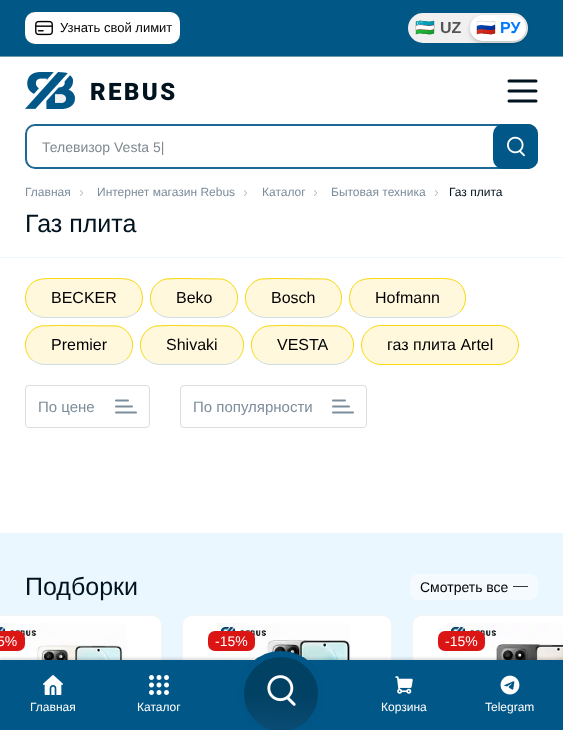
async function draw(canvas) {
	canvas.width = 563;
	canvas.height = 730;
	const c = canvas.getContext('2d');
	c.miterLimit = 4;
	c.fontKerning = 'normal';
	async function loadImage(src) {
		const img = new Image();
		img.src = src;
		await img.decode();
		return img;
	}
	let gradient;

	c.fillStyle = '#fff';
	c.fillRect(0, 0, 563, 730);
	c.fillStyle = '#015887';
	c.fillRect(0, 0, 563, 56);
	c.fillStyle = '#6d99b0';
	c.fillRect(0, 56, 563, 1);
	c.fillStyle = '#fff';
	c.beginPath();
	c.roundRect(25, 12, 155, 32, 10);
	c.fill();
	c.drawImage(await loadImage('img1.png'), 35, 20, 18, 16);
	c.font = '13px Liberation Sans';
	c.fillStyle = '#000';
	c.fillText('Узнать свой лимит', 60, 32);
	c.fillStyle = '#f0f0f0';
	c.beginPath();
	c.roundRect(408, 13, 120, 30, 15);
	c.fill();
	c.font = 'bold 16px Noto Color Emoji';
	c.fillStyle = '#555';
	c.fillText('🇺🇿', 415, 33);
	c.font = 'bold 16px Liberation Sans';
	c.fillText('UZ', 440, 33);
	c.fillStyle = '#00000033';
	c.filter = 'blur(2px)';
	c.beginPath();
	c.roundRect(470, 17, 56, 26, 13);
	c.fill();
	c.filter = 'none';
	c.fillStyle = '#fff';
	c.beginPath();
	c.roundRect(470, 15, 56, 26, 13);
	c.fill();
	c.font = 'bold 16px Noto Color Emoji';
	c.fillStyle = '#007bff';
	c.fillText('🇷🇺', 476, 33);
	c.font = 'bold 16px Liberation Sans';
	c.fillText('РУ', 500, 33);
	c.drawImage(await loadImage('img2.png'), 25, 72, 150, 37);
	c.beginPath();
	c.moveTo(509, 81);
	c.lineTo(536, 81);
	c.moveTo(509, 91);
	c.lineTo(536, 91);
	c.moveTo(509, 101);
	c.lineTo(536, 101);
	c.strokeStyle = '#01131e';
	c.lineWidth = 3;
	c.lineCap = 'round';
	c.lineJoin = 'round';
	c.stroke();
	c.drawImage(await loadImage('img4.png'), 80, 190, 3, 6);
	c.drawImage(await loadImage('img4.png'), 244, 190, 3, 6);
	c.drawImage(await loadImage('img4.png'), 314, 190, 3, 6);
	c.drawImage(await loadImage('img4.png'), 435, 190, 3, 6);
	c.save();
	c.beginPath();
	c.moveTo(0, 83);
	c.lineTo(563, 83);
	c.lineTo(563, 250);
	c.lineTo(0, 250);
	c.closePath();
	c.moveTo(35, 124);
	c.lineTo(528, 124);
	c.bezierCurveTo(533.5, 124, 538, 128.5, 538, 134);
	c.lineTo(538, 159);
	c.bezierCurveTo(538, 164.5, 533.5, 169, 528, 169);
	c.lineTo(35, 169);
	c.bezierCurveTo(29.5, 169, 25, 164.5, 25, 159);
	c.lineTo(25, 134);
	c.bezierCurveTo(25, 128.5, 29.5, 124, 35, 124);
	c.closePath();
	c.clip('evenodd');
	c.fillStyle = '#ffffff73';
	c.filter = 'blur(20px)';
	c.beginPath();
	c.roundRect(25, 144, 513, 45, 10);
	c.fill();
	c.filter = 'none';
	c.restore();
	c.beginPath();
	c.roundRect(26, 125, 511, 43, 9);
	c.strokeStyle = '#1b6893';
	c.lineWidth = 2;
	c.lineJoin = 'miter';
	c.stroke();
	c.font = '14px Liberation Sans';
	c.fillStyle = '#80898f';
	c.fillText('Телевизор Vesta 5|', 42, 152);
	gradient = c.createLinearGradient(408, 147, 538, 147);
	gradient.addColorStop(0, '#ffffff00');
	gradient.addColorStop(0.5, '#fff');
	gradient.addColorStop(1, '#fff');
	c.fillStyle = gradient;
	c.beginPath();
	c.roundRect(408, 126, 130, 41, 20);
	c.fill();
	c.fillStyle = '#015787';
	c.beginPath();
	c.roundRect(493, 124, 45, 45, 10);
	c.fill();
	c.drawImage(await loadImage('img3.png'), 507, 136, 18, 21);
	c.font = '12px Liberation Sans';
	c.fillStyle = '#7c8d9c';
	for (const [text, x, y] of [
		['Главная', 25, 196],
		['Интернет магазин Rebus', 97, 196],
		['Каталог', 262, 196],
		['Бытовая техника', 331, 196],
	]) {
		c.fillText(text, x, y);
	}
	c.fillStyle = '#01131e';
	c.fillText('Газ плита', 449, 196);
	c.fillStyle = '#e9f7ff';
	c.fillRect(0, 257, 563, 1);
	c.font = '25px Liberation Sans';
	c.fillStyle = '#01131e';
	c.fillText('Газ плита', 25, 232);
	c.fillStyle = '#fff8dd';
	c.beginPath();
	c.roundRect(25, 278, 118, 40, 20);
	c.fill();
	c.beginPath();
	c.moveTo(137, 312);
	c.bezierCurveTo(133, 315.5, 128, 317.5, 123, 317.5);
	c.lineTo(45, 317.5);
	c.bezierCurveTo(40, 317.5, 35, 315.5, 31, 312);
	c.strokeStyle = '#cfdde4';
	c.lineWidth = 1;
	c.lineCap = 'butt';
	c.stroke();
	c.beginPath();
	c.moveTo(31, 312);
	c.bezierCurveTo(26.5, 307, 24.5, 300.5, 26, 294);
	c.bezierCurveTo(29.5, 277, 44.5, 278.5, 58, 278.5);
	c.lineTo(110, 278.5);
	c.bezierCurveTo(123.5, 278.5, 138.5, 277, 142, 294);
	c.bezierCurveTo(143.5, 300.5, 141.5, 307, 137, 312);
	c.strokeStyle = '#fad80f';
	c.stroke();
	c.font = '16px Liberation Sans';
	c.fillStyle = '#000';
	c.fillText('BECKER', 51, 303);
	c.fillStyle = '#fff8dd';
	c.beginPath();
	c.roundRect(150, 278, 88, 40, 20);
	c.fill();
	c.beginPath();
	c.moveTo(232, 312);
	c.bezierCurveTo(228, 315.5, 223, 317.5, 218, 317.5);
	c.lineTo(170, 317.5);
	c.bezierCurveTo(165, 317.5, 160, 315.5, 156, 312);
	c.strokeStyle = '#cfdde4';
	c.stroke();
	c.beginPath();
	c.moveTo(156, 312);
	c.bezierCurveTo(152, 307.5, 150, 302, 150.5, 296);
	c.bezierCurveTo(151.5, 287.5, 158, 280.5, 166, 279);
	c.lineTo(178, 278.5);
	c.lineTo(222, 279);
	c.bezierCurveTo(230, 280.5, 236.5, 287.5, 237.5, 296);
	c.bezierCurveTo(238, 302, 236, 307.5, 232, 312);
	c.strokeStyle = '#fad80f';
	c.stroke();
	c.fillStyle = '#000';
	c.fillText('Beko', 176, 303);
	c.fillStyle = '#fff8dd';
	c.beginPath();
	c.roundRect(245, 278, 97, 40, 20);
	c.fill();
	c.beginPath();
	c.moveTo(336, 312);
	c.bezierCurveTo(332, 315.5, 327, 317.5, 322, 317.5);
	c.lineTo(265, 317.5);
	c.bezierCurveTo(260, 317.5, 255, 315.5, 251, 312);
	c.strokeStyle = '#cfdde4';
	c.stroke();
	c.beginPath();
	c.moveTo(251, 312);
	c.bezierCurveTo(247, 307.5, 245, 302, 245.5, 296);
	c.bezierCurveTo(246.5, 287.5, 253, 280.5, 261, 279);
	c.lineTo(274.5, 278.5);
	c.lineTo(326, 279);
	c.bezierCurveTo(334, 280.5, 340.5, 287.5, 341.5, 296);
	c.bezierCurveTo(342, 302, 340, 307.5, 336, 312);
	c.strokeStyle = '#fad80f';
	c.stroke();
	c.fillStyle = '#000';
	c.fillText('Bosch', 271, 303);
	c.fillStyle = '#fff8dd';
	c.beginPath();
	c.roundRect(349, 278, 117, 40, 20);
	c.fill();
	c.beginPath();
	c.moveTo(460, 312);
	c.bezierCurveTo(456, 315.5, 451, 317.5, 446, 317.5);
	c.lineTo(369, 317.5);
	c.bezierCurveTo(364, 317.5, 359, 315.5, 355, 312);
	c.strokeStyle = '#cfdde4';
	c.stroke();
	c.beginPath();
	c.moveTo(355, 312);
	c.bezierCurveTo(350.5, 307, 348.5, 300.5, 350, 294);
	c.bezierCurveTo(353.5, 277, 368.5, 278.5, 382, 278.5);
	c.lineTo(433, 278.5);
	c.bezierCurveTo(446.5, 278.5, 461.5, 277, 465, 294);
	c.bezierCurveTo(466.5, 300.5, 464.5, 307, 460, 312);
	c.strokeStyle = '#fad80f';
	c.stroke();
	c.fillStyle = '#000';
	c.fillText('Hofmann', 375, 303);
	c.fillStyle = '#fff8dd';
	c.beginPath();
	c.roundRect(25, 325, 108, 40, 20);
	c.fill();
	c.beginPath();
	c.moveTo(127, 359);
	c.bezierCurveTo(123, 362.5, 118, 364.5, 113, 364.5);
	c.lineTo(45, 364.5);
	c.bezierCurveTo(40, 364.5, 35, 362.5, 31, 359);
	c.strokeStyle = '#cfdde4';
	c.stroke();
	c.beginPath();
	c.moveTo(31, 359);
	c.bezierCurveTo(27, 354.5, 25, 349, 25.5, 343);
	c.bezierCurveTo(26.5, 334.5, 33, 327.5, 41, 326);
	c.lineTo(56.5, 325.5);
	c.lineTo(117, 326);
	c.bezierCurveTo(125, 327.5, 131.5, 334.5, 132.5, 343);
	c.bezierCurveTo(133, 349, 131, 354.5, 127, 359);
	c.strokeStyle = '#fad80f';
	c.stroke();
	c.fillStyle = '#000';
	c.fillText('Premier', 51, 350);
	c.fillStyle = '#fff8dd';
	c.beginPath();
	c.roundRect(140, 325, 104, 40, 20);
	c.fill();
	c.beginPath();
	c.moveTo(238, 359);
	c.bezierCurveTo(234, 362.5, 229, 364.5, 224, 364.5);
	c.lineTo(160, 364.5);
	c.bezierCurveTo(155, 364.5, 150, 362.5, 146, 359);
	c.strokeStyle = '#cfdde4';
	c.stroke();
	c.beginPath();
	c.moveTo(146, 359);
	c.bezierCurveTo(142, 354.5, 140, 349, 140.5, 343);
	c.bezierCurveTo(141.5, 334.5, 148, 327.5, 156, 326);
	c.lineTo(170.5, 325.5);
	c.lineTo(228, 326);
	c.bezierCurveTo(236, 327.5, 242.5, 334.5, 243.5, 343);
	c.bezierCurveTo(244, 349, 242, 354.5, 238, 359);
	c.strokeStyle = '#fad80f';
	c.stroke();
	c.fillStyle = '#000';
	c.fillText('Shivaki', 166, 350);
	c.fillStyle = '#fff8dd';
	c.beginPath();
	c.roundRect(251, 325, 103, 40, 20);
	c.fill();
	c.beginPath();
	c.moveTo(348, 359);
	c.bezierCurveTo(344, 362.5, 339, 364.5, 334, 364.5);
	c.lineTo(271, 364.5);
	c.bezierCurveTo(266, 364.5, 261, 362.5, 257, 359);
	c.strokeStyle = '#cfdde4';
	c.stroke();
	c.beginPath();
	c.moveTo(257, 359);
	c.bezierCurveTo(253, 354.5, 251, 349, 251.5, 343);
	c.bezierCurveTo(252.5, 334.5, 259, 327.5, 267, 326);
	c.lineTo(281.5, 325.5);
	c.lineTo(338, 326);
	c.bezierCurveTo(346, 327.5, 352.5, 334.5, 353.5, 343);
	c.bezierCurveTo(354, 349, 352, 354.5, 348, 359);
	c.strokeStyle = '#fad80f';
	c.stroke();
	c.fillStyle = '#000';
	c.fillText('VESTA', 277, 350);
	c.fillStyle = '#fff8dd';
	c.beginPath();
	c.roundRect(361.5, 325.5, 157, 39, 19.5);
	c.fill();
	c.stroke();
	c.fillStyle = '#000';
	c.fillText('газ плита Artel', 387, 350);
	c.beginPath();
	c.roundRect(25.5, 385.5, 124, 42, 3.5);
	c.strokeStyle = '#ddd';
	c.stroke();
	c.font = '15px Liberation Sans';
	c.fillStyle = '#7c8d9c';
	c.fillText('По цене', 38, 412);
	c.beginPath();
	c.moveTo(116, 406.5);
	c.lineTo(132, 406.5);
	c.moveTo(116, 400.5);
	c.lineTo(128, 400.5);
	c.moveTo(116, 412.5);
	c.lineTo(136, 412.5);
	c.strokeStyle = '#7c8d9c';
	c.lineWidth = 2;
	c.lineCap = 'round';
	c.lineJoin = 'round';
	c.stroke();
	c.beginPath();
	c.roundRect(180.5, 385.5, 186, 42, 3.5);
	c.strokeStyle = '#ddd';
	c.lineWidth = 1;
	c.lineJoin = 'miter';
	c.stroke();
	c.fillText('По популярности', 193, 412);
	c.beginPath();
	c.moveTo(333, 406.5);
	c.lineTo(349, 406.5);
	c.moveTo(333, 400.5);
	c.lineTo(345, 400.5);
	c.moveTo(333, 412.5);
	c.lineTo(353, 412.5);
	c.strokeStyle = '#7c8d9c';
	c.lineWidth = 2;
	c.lineJoin = 'round';
	c.stroke();
	c.fillStyle = '#eaf7ff';
	c.fillRect(0, 533, 563, 127);
	c.font = '25px Liberation Sans';
	c.fillStyle = '#01131e';
	c.fillText('Подборки', 25, 595);
	c.fillStyle = '#f5faff';
	c.beginPath();
	c.roundRect(410, 574, 128, 26, 8);
	c.fill();
	c.font = '14px Liberation Sans';
	c.fillStyle = '#000';
	c.fillText('Смотреть все', 420, 592);
	c.fillStyle = '#383838';
	c.fillRect(513, 586, 15, 1);
	c.beginPath();
	c.roundRect(-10.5, 615.5, 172, 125, 9.5);
	c.strokeStyle = '#f5f5f5';
	c.lineWidth = 1;
	c.lineJoin = 'miter';
	c.stroke();
	c.fillStyle = '#fff';
	c.beginPath();
	c.moveTo(0, 616);
	c.lineTo(152, 616);
	c.bezierCurveTo(157, 616, 161, 620, 161, 625);
	c.lineTo(161, 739);
	c.lineTo(0, 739);
	c.closePath();
	c.fill();
	c.drawImage(await loadImage('img5.png'), 0, 623, 127, 37);
	c.fillStyle = '#db1414';
	c.beginPath();
	c.roundRect(0, 631, 25, 20, [0, 7, 7, 0]);
	c.fill();
	c.fillStyle = '#fff';
	c.fillText('5%', -3, 646);
	c.beginPath();
	c.roundRect(182.5, 615.5, 209, 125, 9.5);
	c.stroke();
	c.beginPath();
	c.moveTo(192, 616);
	c.lineTo(382, 616);
	c.bezierCurveTo(387, 616, 391, 620, 391, 625);
	c.lineTo(391, 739);
	c.lineTo(183, 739);
	c.lineTo(183, 625);
	c.bezierCurveTo(183, 620, 187, 616, 192, 616);
	c.closePath();
	c.fill();
	c.drawImage(await loadImage('img6.png'), 217, 623, 134, 37);
	c.fillStyle = '#db1414';
	c.beginPath();
	c.roundRect(208, 631, 47, 20, 7);
	c.fill();
	c.fillStyle = '#fff';
	c.fillText('-15%', 215, 646);
	c.beginPath();
	c.roundRect(412.5, 615.5, 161, 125, 9.5);
	c.stroke();
	c.beginPath();
	c.moveTo(422, 616);
	c.lineTo(563, 616);
	c.lineTo(563, 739);
	c.lineTo(413, 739);
	c.lineTo(413, 625);
	c.bezierCurveTo(413, 620, 417, 616, 422, 616);
	c.closePath();
	c.fill();
	c.drawImage(await loadImage('img7.png'), 447, 623, 116, 37);
	c.fillStyle = '#db1414';
	c.beginPath();
	c.roundRect(438, 631, 47, 20, 7);
	c.fill();
	c.fillStyle = '#fff';
	c.fillText('-15%', 445, 646);
	c.fillStyle = '#0000001f';
	c.filter = 'blur(1px)';
	c.beginPath();
	c.rect(0, 658, 563, 70);
	c.fill();
	c.filter = 'none';
	c.fillStyle = '#015787';
	c.fillRect(0, 660, 563, 70);
	c.drawImage(await loadImage('img8.png'), 43, 675, 20, 20);
	c.font = '12px Liberation Sans';
	c.fillStyle = '#fff';
	c.fillText('Главная', 30, 711);
	c.drawImage(await loadImage('img9.png'), 149, 675, 20, 20);
	c.fillText('Каталог', 137, 711);
	c.save();
	c.beginPath();
	c.roundRect(238, 651, 86, 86, 43);
	c.clip();
	gradient = c.createLinearGradient(279, 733, 283, 655);
	gradient.addColorStop(0.07, '#0a4b73');
	gradient.addColorStop(0.49, '#014164');
	c.fillStyle = gradient;
	c.fillRect(244, 657, 74, 73);
	c.restore();
	c.beginPath();
	c.arc(281, 694, 40, 0, 2 * Math.PI);
	c.strokeStyle = '#005787';
	c.lineWidth = 6;
	c.stroke();
	c.drawImage(await loadImage('img10.png'), 267, 675, 29, 31);
	c.drawImage(await loadImage('img11.png'), 395, 676, 18, 18);
	c.fillText('Корзина', 381, 711);
	c.drawImage(await loadImage('img12.png'), 500, 675, 20, 20);
	c.fillText('Telegram', 485, 711);
}

draw(document.querySelector('canvas'));
